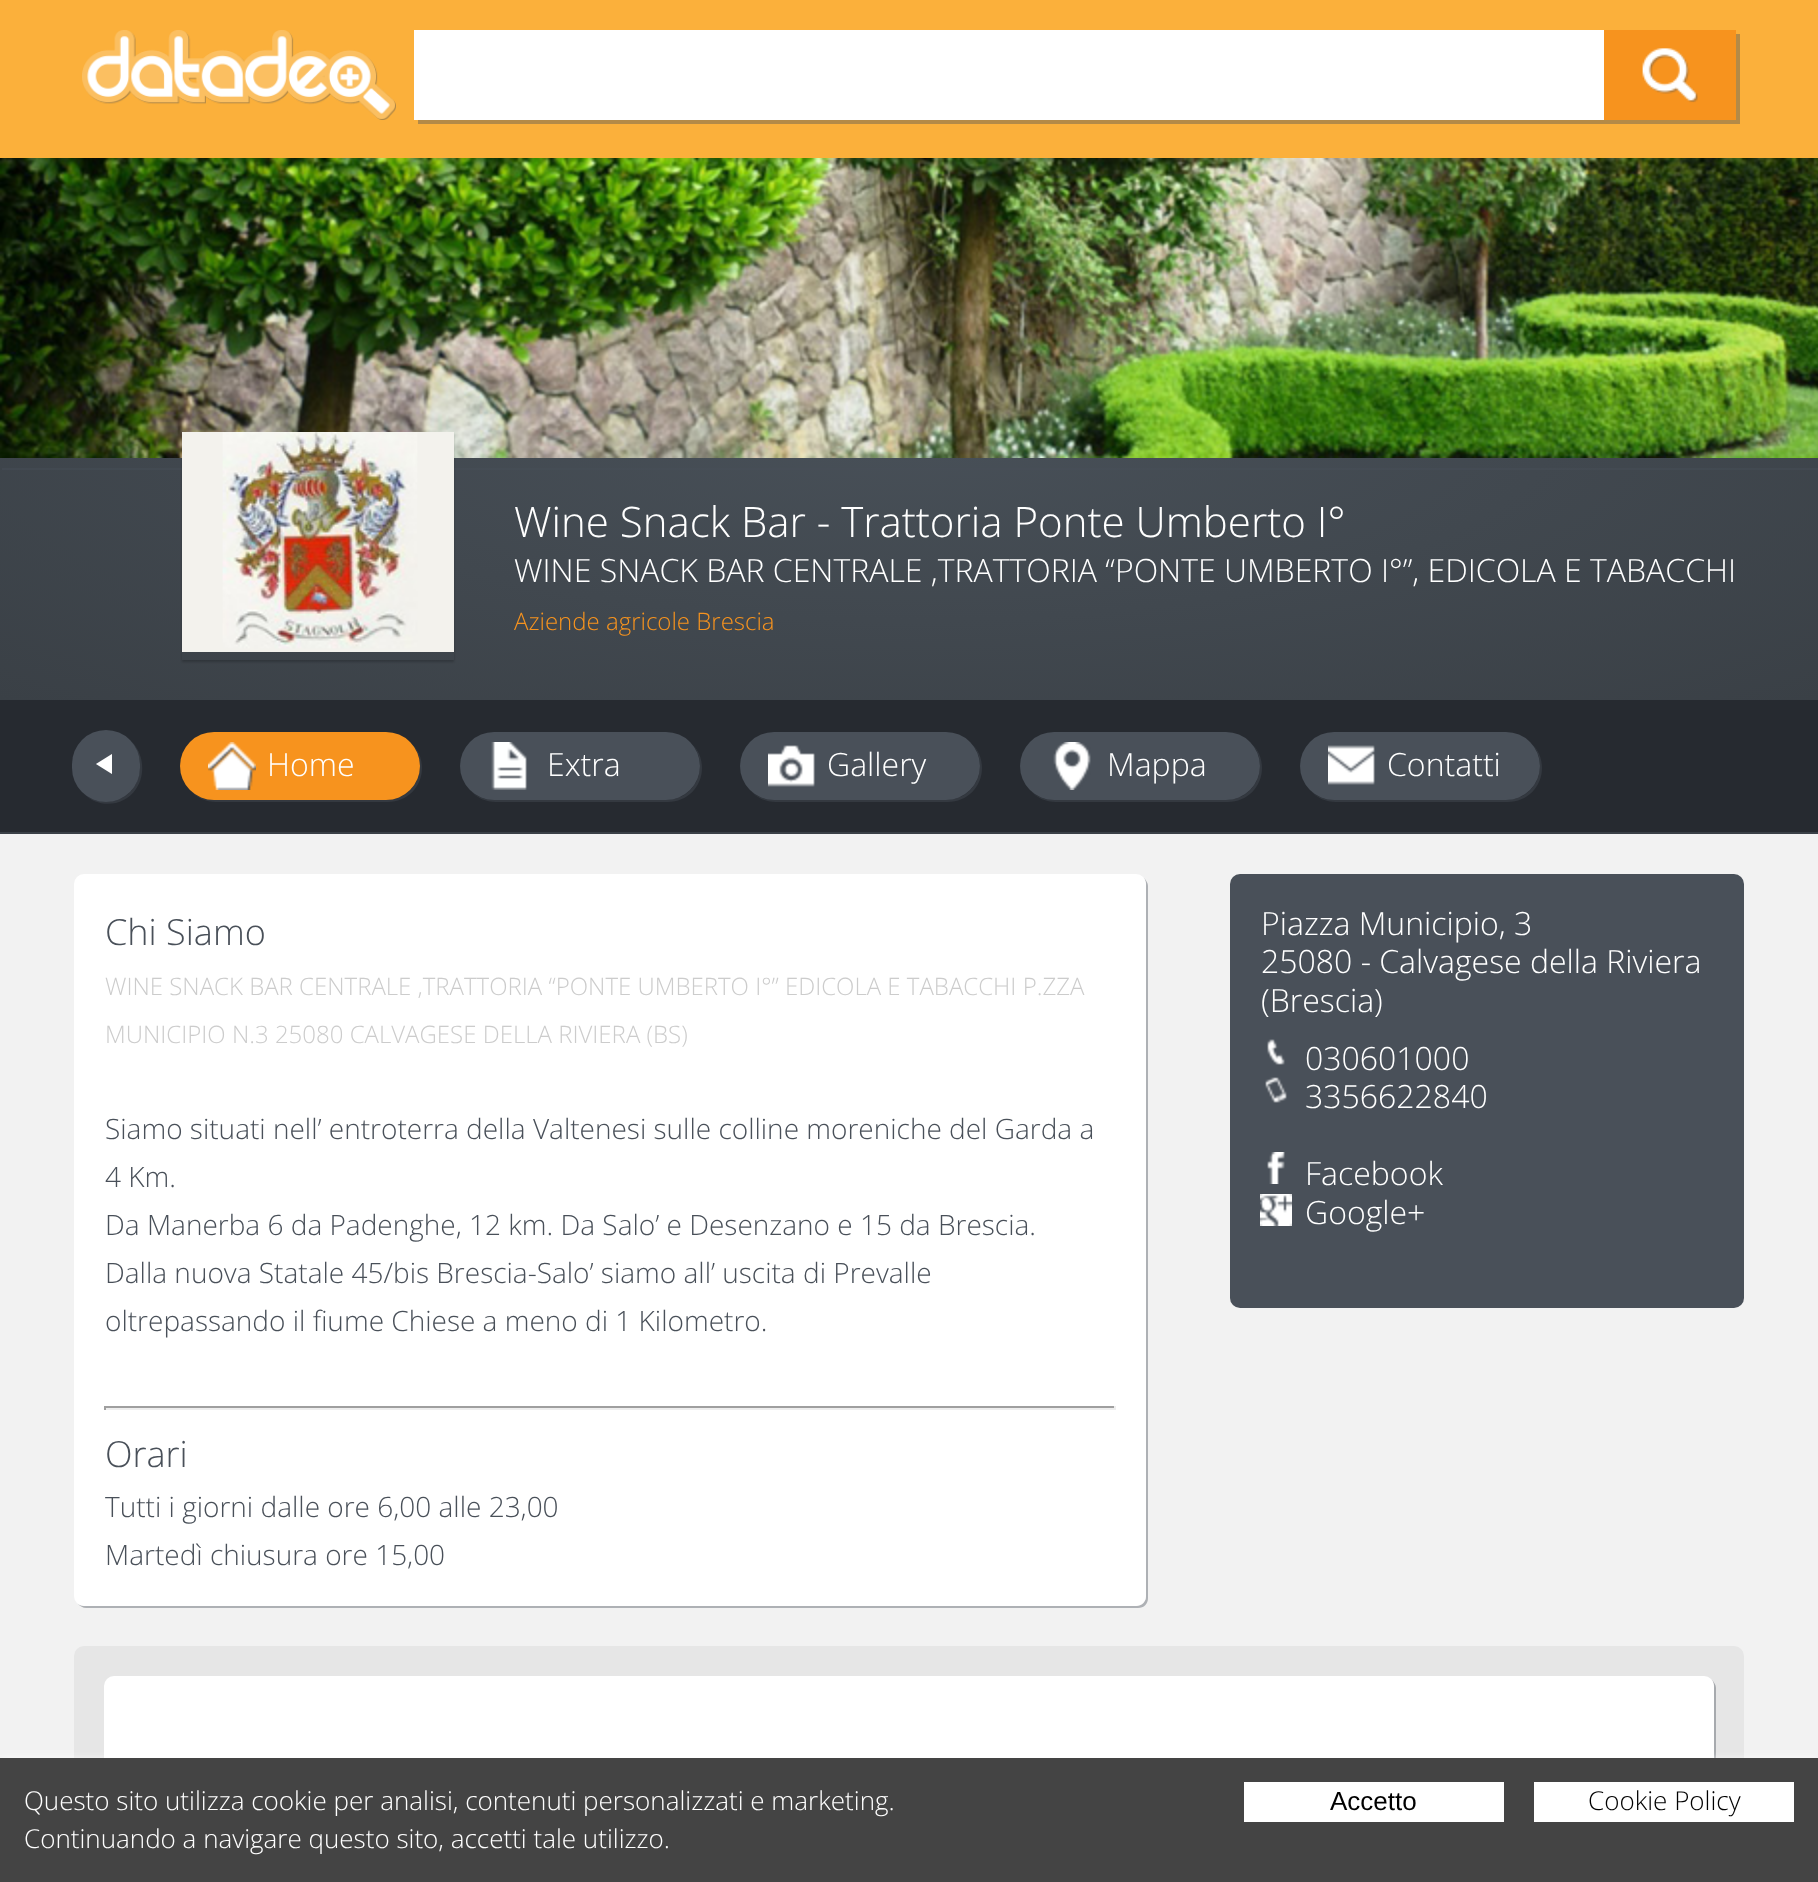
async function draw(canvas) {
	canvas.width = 1818;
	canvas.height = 1882;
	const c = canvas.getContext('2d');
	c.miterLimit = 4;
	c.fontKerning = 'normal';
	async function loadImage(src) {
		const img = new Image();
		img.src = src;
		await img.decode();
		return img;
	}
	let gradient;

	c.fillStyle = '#f2f2f2';
	c.fillRect(0, 0, 1818, 1882);
	c.fillStyle = '#fbb03b';
	c.fillRect(0, 0, 1818, 158);
	c.drawImage(await loadImage('img1.png'), 82, 30, 314, 90);
	c.fillStyle = '#b48a47';
	c.beginPath();
	c.moveTo(418, 120);
	c.lineTo(418, 124);
	c.lineTo(1740, 124);
	c.lineTo(1740, 34);
	c.lineTo(1736, 34);
	c.lineTo(1736, 120);
	c.closePath();
	c.fill();
	c.fillStyle = '#fff';
	c.fillRect(414, 30, 1190, 90);
	c.fillStyle = '#f7931e';
	c.fillRect(1604, 30, 132, 90);
	c.drawImage(await loadImage('img2.png'), 1642, 48, 56, 55);
	gradient = c.createRadialGradient(909, 1440.45, 0, 909, 1440.45, 1286);
	gradient.addColorStop(0, '#485058');
	gradient.addColorStop(1, '#3a4046');
	c.fillStyle = gradient;
	c.beginPath();
	c.rect(0, 458, 1818, 242);
	c.save();
	c.clip();
	c.scale(1, 383 / 1286);
	c.fillRect(0, 0, 1818, 6320);
	c.restore();
	c.fillStyle = '#49505966';
	c.beginPath();
	c.moveTo(2, 468);
	c.lineTo(2, 470);
	c.lineTo(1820, 470);
	c.lineTo(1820, 160);
	c.lineTo(1818, 160);
	c.lineTo(1818, 468);
	c.closePath();
	c.fill();
	c.drawImage(await loadImage('img3.png'), 0, 158, 1818, 300);
	c.save();
	c.beginPath();
	c.moveTo(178, 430);
	c.lineTo(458, 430);
	c.lineTo(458, 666);
	c.lineTo(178, 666);
	c.closePath();
	c.moveTo(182, 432);
	c.lineTo(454, 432);
	c.lineTo(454, 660);
	c.lineTo(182, 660);
	c.closePath();
	c.clip('evenodd');
	c.fillStyle = '#00000033';
	c.filter = 'blur(1px)';
	c.beginPath();
	c.rect(182, 434, 272, 228);
	c.fill();
	c.filter = 'none';
	c.restore();
	c.drawImage(await loadImage('img4.png'), 182, 432, 272, 220);
	c.font = '300 42px Open Sans';
	c.fillStyle = '#fff';
	c.fillText('Wine Snack Bar - Trattoria Ponte Umberto I°', 514, 537);
	c.font = '300 32px Open Sans';
	c.fillText('WINE SNACK BAR CENTRALE ,TRATTORIA “PONTE UMBERTO I°”, EDICOLA E TABACCHI', 514, 582);
	c.font = '300 24px Open Sans';
	c.fillStyle = '#f7931e';
	c.fillText('Aziende agricole Brescia', 514, 630);
	c.fillStyle = '#262a30';
	c.fillRect(0, 700, 1818, 132);
	c.fillStyle = '#3a4047';
	c.fillRect(0, 832, 1818, 2);
	c.fillStyle = '#343940';
	c.beginPath();
	c.moveTo(83, 793);
	c.bezierCurveTo(98, 809, 124, 807, 136, 789);
	c.bezierCurveTo(146, 775, 144, 753, 131, 741);
	c.bezierCurveTo(142, 753, 143, 774, 134, 787);
	c.bezierCurveTo(123, 804, 98, 807, 83, 793);
	c.closePath();
	c.fill();
	c.fillStyle = '#495059';
	c.beginPath();
	c.roundRect(72, 730, 68, 72, 34);
	c.fill();
	c.drawImage(await loadImage('img5.png'), 96, 754, 16, 20);
	c.fillStyle = '#343940';
	c.beginPath();
	c.moveTo(191, 791);
	c.bezierCurveTo(197, 798, 206, 802, 216, 802);
	c.lineTo(388, 802);
	c.bezierCurveTo(407, 802, 422, 787, 422, 768);
	c.bezierCurveTo(422, 758, 418, 749, 411, 743);
	c.bezierCurveTo(417, 749, 420, 757, 420, 766);
	c.bezierCurveTo(420, 785, 405, 800, 386, 800);
	c.lineTo(214, 800);
	c.bezierCurveTo(205, 800, 197, 797, 191, 791);
	c.closePath();
	c.fill();
	c.fillStyle = '#f7931e';
	c.beginPath();
	c.roundRect(180, 732, 240, 68, 34);
	c.fill();
	c.drawImage(await loadImage('img6.png'), 208, 742, 48, 48);
	c.font = '300 32px Open Sans';
	c.fillStyle = '#fff';
	c.fillText('Home', 267, 776);
	c.fillStyle = '#343940';
	c.beginPath();
	c.moveTo(471, 791);
	c.bezierCurveTo(477, 798, 486, 802, 496, 802);
	c.lineTo(668, 802);
	c.bezierCurveTo(687, 802, 702, 787, 702, 768);
	c.bezierCurveTo(702, 758, 698, 749, 691, 743);
	c.bezierCurveTo(697, 749, 700, 757, 700, 766);
	c.bezierCurveTo(700, 785, 685, 800, 666, 800);
	c.lineTo(494, 800);
	c.bezierCurveTo(485, 800, 477, 797, 471, 791);
	c.closePath();
	c.fill();
	c.fillStyle = '#495059';
	c.beginPath();
	c.roundRect(460, 732, 240, 68, 34);
	c.fill();
	c.drawImage(await loadImage('img7.png'), 491, 742, 36, 48);
	c.fillStyle = '#fff';
	c.fillText('Extra', 547, 776);
	c.fillStyle = '#343940';
	c.beginPath();
	c.moveTo(751, 791);
	c.bezierCurveTo(757, 798, 766, 802, 776, 802);
	c.lineTo(948, 802);
	c.bezierCurveTo(967, 802, 982, 787, 982, 768);
	c.bezierCurveTo(982, 758, 978, 749, 971, 743);
	c.bezierCurveTo(977, 749, 980, 757, 980, 766);
	c.bezierCurveTo(980, 785, 965, 800, 946, 800);
	c.lineTo(774, 800);
	c.bezierCurveTo(765, 800, 757, 797, 751, 791);
	c.closePath();
	c.fill();
	c.fillStyle = '#495059';
	c.beginPath();
	c.roundRect(740, 732, 240, 68, 34);
	c.fill();
	c.drawImage(await loadImage('img8.png'), 768, 745, 47, 42);
	c.fillStyle = '#fff';
	c.fillText('Gallery', 827, 776);
	c.fillStyle = '#343940';
	c.beginPath();
	c.moveTo(1031, 791);
	c.bezierCurveTo(1037, 798, 1046, 802, 1056, 802);
	c.lineTo(1228, 802);
	c.bezierCurveTo(1247, 802, 1262, 787, 1262, 768);
	c.bezierCurveTo(1262, 758, 1258, 749, 1251, 743);
	c.bezierCurveTo(1257, 749, 1260, 757, 1260, 766);
	c.bezierCurveTo(1260, 785, 1245, 800, 1226, 800);
	c.lineTo(1054, 800);
	c.bezierCurveTo(1045, 800, 1037, 797, 1031, 791);
	c.closePath();
	c.fill();
	c.fillStyle = '#495059';
	c.beginPath();
	c.roundRect(1020, 732, 240, 68, 34);
	c.fill();
	c.drawImage(await loadImage('img9.png'), 1053, 742, 38, 48);
	c.fillStyle = '#fff';
	c.fillText('Mappa', 1107, 776);
	c.fillStyle = '#343940';
	c.beginPath();
	c.moveTo(1311, 791);
	c.bezierCurveTo(1317, 798, 1326, 802, 1336, 802);
	c.lineTo(1508, 802);
	c.bezierCurveTo(1527, 802, 1542, 787, 1542, 768);
	c.bezierCurveTo(1542, 758, 1538, 749, 1531, 743);
	c.bezierCurveTo(1537, 749, 1540, 757, 1540, 766);
	c.bezierCurveTo(1540, 785, 1525, 800, 1506, 800);
	c.lineTo(1334, 800);
	c.bezierCurveTo(1325, 800, 1317, 797, 1311, 791);
	c.closePath();
	c.fill();
	c.fillStyle = '#495059';
	c.beginPath();
	c.roundRect(1300, 732, 240, 68, 34);
	c.fill();
	c.drawImage(await loadImage('img10.png'), 1328, 745, 47, 40);
	c.fillStyle = '#fff';
	c.fillText('Contatti', 1387, 776);
	c.fillStyle = '#aeb1b5';
	c.beginPath();
	c.moveTo(78, 1604);
	c.bezierCurveTo(80, 1606, 83, 1608, 86, 1608);
	c.lineTo(1138, 1608);
	c.bezierCurveTo(1144, 1608, 1148, 1604, 1148, 1598);
	c.lineTo(1148, 886);
	c.bezierCurveTo(1148, 883, 1146, 880, 1144, 878);
	c.bezierCurveTo(1145, 880, 1146, 882, 1146, 884);
	c.lineTo(1146, 1596);
	c.bezierCurveTo(1146, 1602, 1142, 1606, 1136, 1606);
	c.lineTo(84, 1606);
	c.bezierCurveTo(82, 1606, 80, 1605, 78, 1604);
	c.closePath();
	c.fill();
	c.fillStyle = '#fff';
	c.beginPath();
	c.roundRect(74, 874, 1072, 732, 10);
	c.fill();
	c.font = '300 36px Open Sans';
	c.fillStyle = '#495059';
	c.fillText('Chi Siamo', 105, 945);
	c.font = '300 24px Open Sans';
	c.fillStyle = '#ccc';
	c.fillText('WINE SNACK BAR CENTRALE ,TRATTORIA “PONTE UMBERTO I°” EDICOLA E TABACCHI P.ZZA', 105, 995);
	c.fillText('MUNICIPIO N.3 25080 CALVAGESE DELLA RIVIERA (BS)', 105, 1043);
	c.font = '300 28px Open Sans';
	c.fillStyle = '#495059';
	for (const [text, x, y] of [
		['Siamo situati nell’ entroterra della Valtenesi sulle colline moreniche del Garda a', 105, 1139],
		['4 Km.', 105, 1187],
		['Da Manerba 6 da Padenghe, 12 km. Da Salo’ e Desenzano e 15 da Brescia.', 105, 1235],
		['Dalla nuova Statale 45/bis Brescia-Salo’ siamo all’ uscita di Prevalle', 105, 1283],
		['oltrepassando il fiume Chiese a meno di 1 Kilometro.', 105, 1331],
	]) {
		c.fillText(text, x, y);
	}
	for (const [x, y, w, h, color] of [
		[104, 1406, 1012, 2, '#9f9f9f'],
		[1114, 1406, 2, 4, '#eee'],
		[104, 1408, 1012, 2, '#eee'],
		[104, 1406, 2, 4, '#9f9f9f'],
	]) {
		c.fillStyle = color;
		c.fillRect(x, y, w, h);
	}
	c.font = '300 36px Open Sans';
	c.fillStyle = '#495059';
	c.fillText('Orari', 105, 1467);
	c.font = '300 28px Open Sans';
	c.fillText('Tutti i giorni dalle ore 6,00 alle 23,00', 105, 1517);
	c.fillText('Martedì chiusura ore 15,00', 105, 1565);
	c.fillStyle = '#e6e6e6';
	c.beginPath();
	c.roundRect(74, 1646, 1670, 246, 10);
	c.fill();
	c.fillStyle = '#a7aaae';
	c.beginPath();
	c.moveTo(108, 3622);
	c.bezierCurveTo(110, 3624, 113, 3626, 116, 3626);
	c.lineTo(1706, 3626);
	c.bezierCurveTo(1712, 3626, 1716, 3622, 1716, 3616);
	c.lineTo(1716, 1688);
	c.bezierCurveTo(1716, 1685, 1714, 1682, 1712, 1680);
	c.bezierCurveTo(1713, 1682, 1714, 1684, 1714, 1686);
	c.lineTo(1714, 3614);
	c.bezierCurveTo(1714, 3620, 1710, 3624, 1704, 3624);
	c.lineTo(114, 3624);
	c.bezierCurveTo(112, 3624, 110, 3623, 108, 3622);
	c.closePath();
	c.fill();
	c.fillStyle = '#fff';
	c.beginPath();
	c.roundRect(104, 1676, 1610, 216, 10);
	c.fill();
	c.fillStyle = '#495059';
	c.beginPath();
	c.roundRect(1230, 874, 514, 434, 10);
	c.fill();
	c.font = '300 32px Open Sans';
	c.fillStyle = '#fff';
	for (const [text, x, y] of [
		['Piazza Municipio, 3', 1261, 935],
		['25080 - Calvagese della Riviera', 1261, 973],
		['(Brescia)', 1261, 1012],
	]) {
		c.fillText(text, x, y);
	}
	c.drawImage(await loadImage('img11.png'), 1267, 1039, 18, 26);
	c.fillText('030601000', 1305, 1070);
	c.drawImage(await loadImage('img12.png'), 1265, 1077, 22, 26);
	c.fillText('3356622840', 1305, 1108);
	c.drawImage(await loadImage('img13.png'), 1267, 1152, 18, 32);
	c.fillText('Facebook', 1305, 1185);
	c.drawImage(await loadImage('img14.png'), 1260, 1194, 32, 32);
	c.fillText('Google+', 1305, 1224);
	c.fillStyle = '#444';
	c.fillRect(0, 1758, 1818, 124);
	c.save();
	c.beginPath();
	c.rect(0, 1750, 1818, 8);
	c.clip();
	c.fillStyle = '#fff';
	c.filter = 'blur(5px)';
	c.beginPath();
	c.rect(0, 1760, 1818, 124);
	c.fill();
	c.filter = 'none';
	c.restore();
	c.font = '300 26px Open Sans';
	c.fillStyle = '#fff';
	c.fillText('Questo sito utilizza cookie per analisi, contenuti personalizzati e marketing.', 24, 1810);
	c.fillText('Continuando a navigare questo sito, accetti tale utilizzo.', 24, 1848);
	c.fillRect(1244, 1782, 260, 40);
	c.font = '26px Liberation Sans';
	c.fillStyle = '#000';
	c.fillText('Accetto', 1330, 1810);
	c.fillStyle = '#fff';
	c.fillRect(1534, 1782, 260, 40);
	c.font = '300 26px Open Sans';
	c.fillStyle = '#000';
	c.fillText('Cookie Policy', 1588, 1810);
}

draw(document.querySelector('canvas'));
